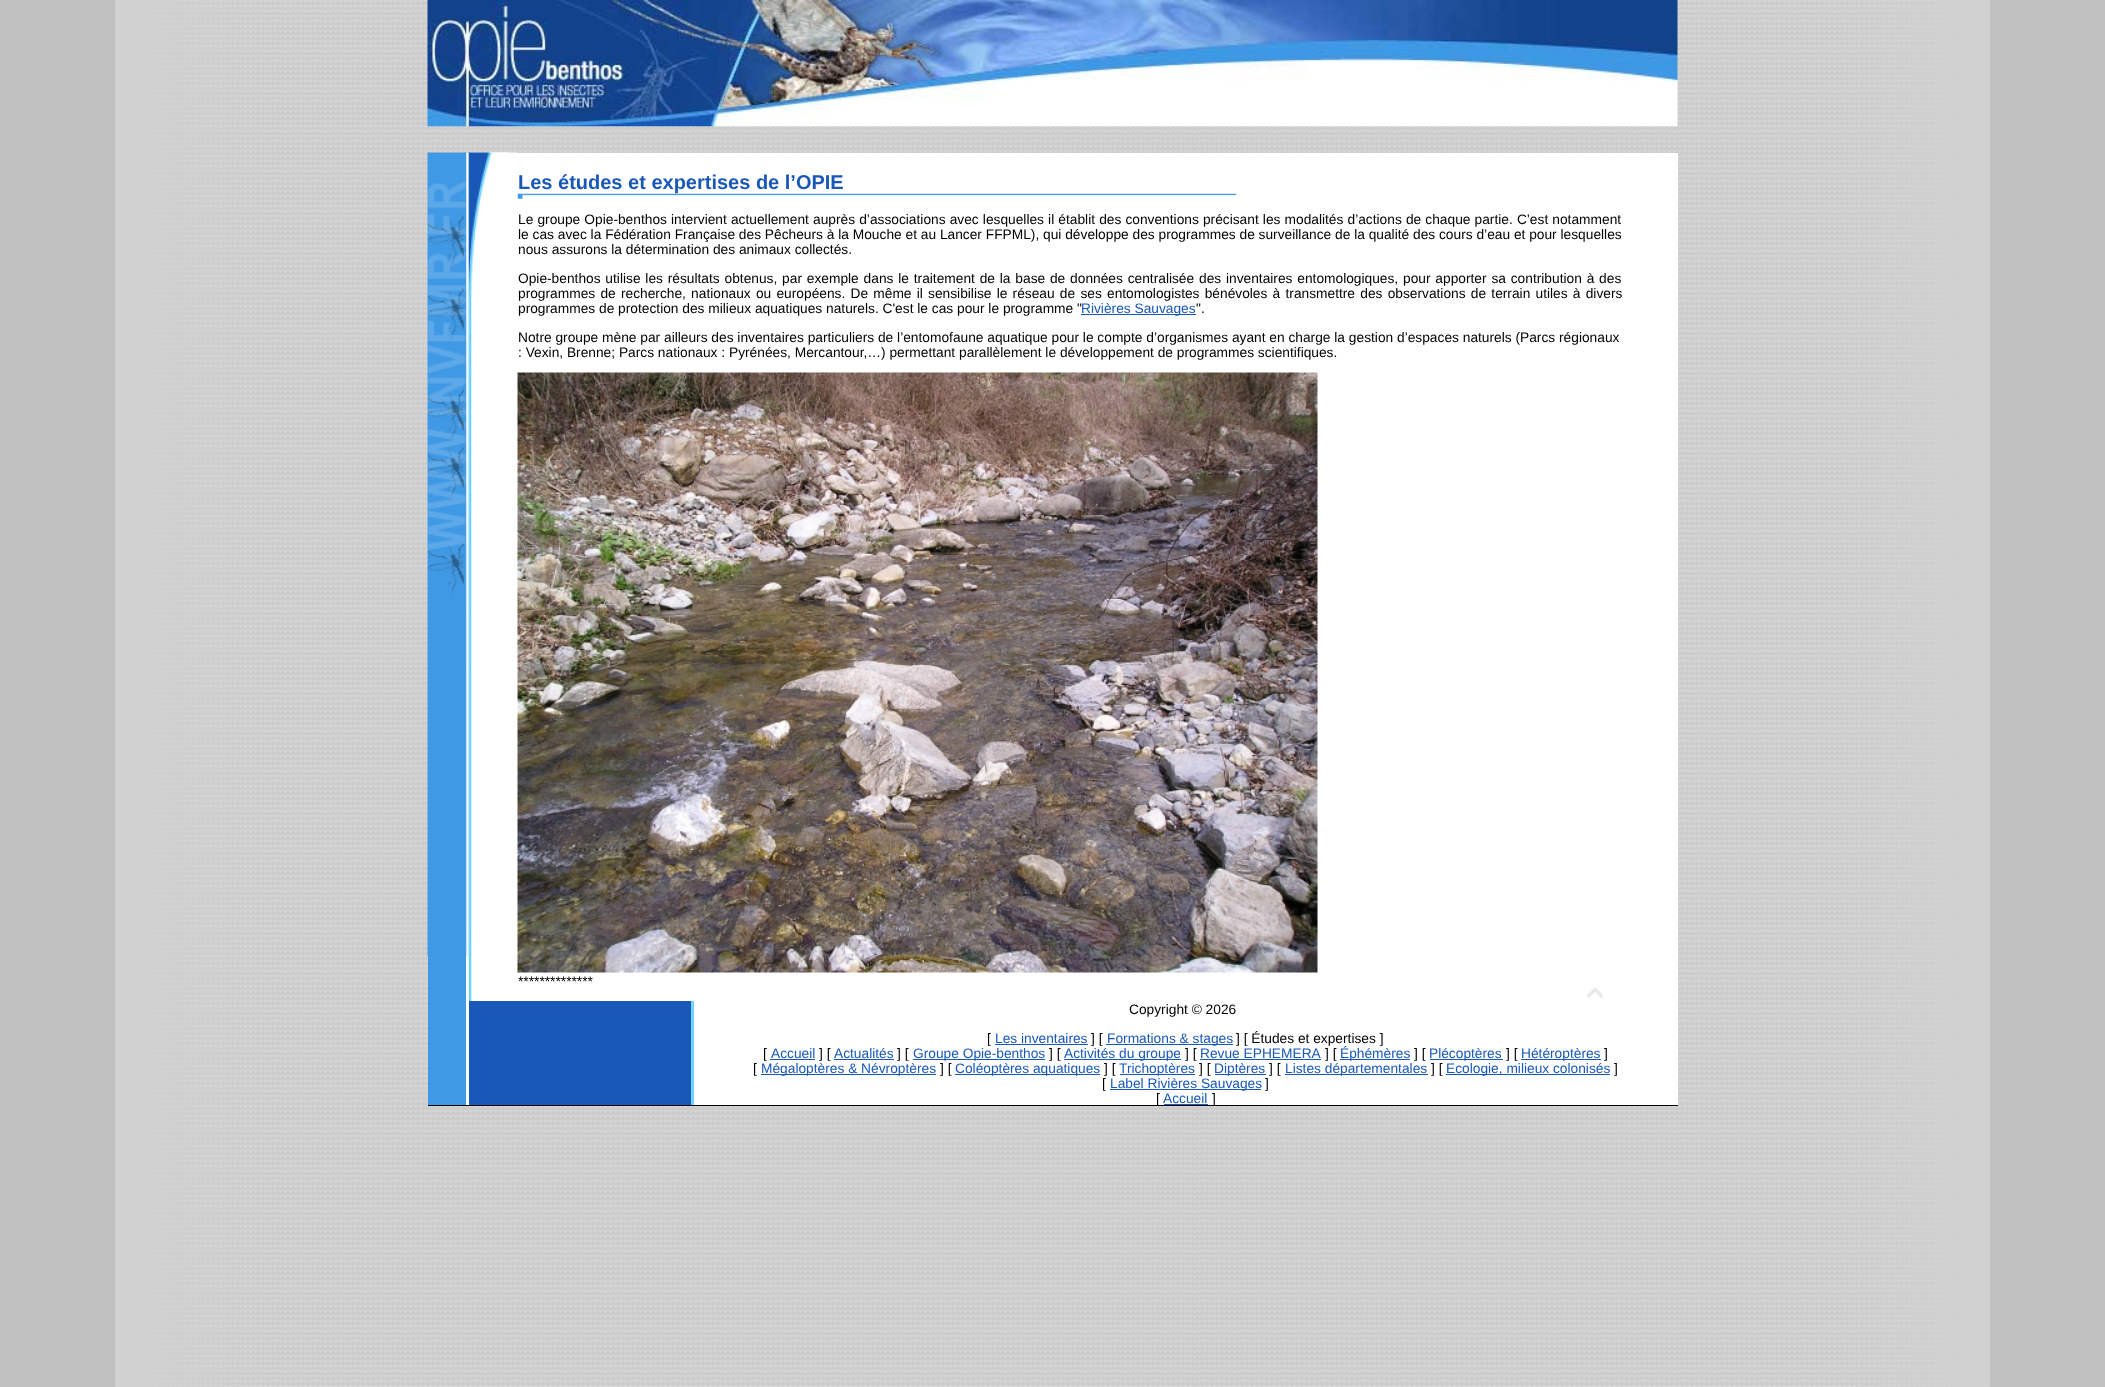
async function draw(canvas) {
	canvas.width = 2105;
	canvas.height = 1387;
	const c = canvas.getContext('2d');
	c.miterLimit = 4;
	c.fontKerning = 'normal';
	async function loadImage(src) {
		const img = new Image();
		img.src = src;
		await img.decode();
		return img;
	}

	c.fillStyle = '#c0c0c0';
	c.fillRect(0, 0, 2105, 1387);
	c.drawImage(await loadImage('img1.png'), 115, 0, 1875, 1387);
	c.drawImage(await loadImage('img2.png'), 427, 0, 1251, 127);
	c.fillStyle = '#fff';
	c.fillRect(466, 153, 1212, 848);
	c.fillStyle = '#3f99e5';
	c.fillRect(428, 956, 38, 149);
	c.drawImage(await loadImage('img3.png'), 427, 152, 40, 805);
	c.drawImage(await loadImage('img4.png'), 468, 152, 40, 849);
	c.drawImage(await loadImage('img6.png'), 517, 193, 720, 6);
	c.drawImage(await loadImage('img5.png'), 468, 152, 50, 805);
	c.font = 'bold 20px Liberation Sans';
	c.fillStyle = '#1958b7';
	c.fillText('Les études et expertises de l’OPIE', 518, 189);
	c.wordSpacing = '0.3px';
	c.font = '13.75px Liberation Sans';
	c.fillStyle = '#000';
	c.fillText('Le groupe Opie-benthos intervient actuellement auprès d’associations avec lesquelles il établit des conventions précisant les modalités d’actions de chaque partie. C’est notamment', 518, 224);
	c.wordSpacing = '0px';
	c.fillText('le cas avec la Fédération Française des Pêcheurs à la Mouche et au Lancer FFPML), qui développe des programmes de surveillance de la qualité des cours d’eau et pour lesquelles', 518, 239);
	c.fillText('nous assurons la détermination des animaux collectés.', 518, 254);
	c.wordSpacing = '1px';
	c.fillText('Opie-benthos utilise les résultats obtenus, par exemple dans le traitement de la base de données centralisée des inventaires entomologiques, pour apporter sa contribution à des', 518, 283);
	c.wordSpacing = '1.4px';
	c.fillText('programmes de recherche, nationaux ou européens. De même il sensibilise le réseau de ses entomologistes bénévoles à transmettre des observations de terrain utiles à divers', 518, 298);
	c.wordSpacing = '0px';
	c.fillText('programmes de protection des milieux aquatiques naturels. C\'est le cas pour le programme "', 518, 313);
	c.fillStyle = '#1958b7';
	c.fillRect(1081, 314, 115, 1);
	c.fillText('Rivières Sauvages', 1081, 313);
	c.fillStyle = '#000';
	for (const [text, x, y] of [
		['".', 1196, 313],
		['Notre groupe mène par ailleurs des inventaires particuliers de l’entomofaune aquatique pour le compte d’organismes ayant en charge la gestion d’espaces naturels (Parcs régionaux', 518, 342],
		[': Vexin, Brenne; Parcs nationaux : Pyrénées, Mercantour,…) permettant parallèlement le développement de programmes scientifiques.', 518, 357],
	]) {
		c.fillText(text, x, y);
	}
	c.drawImage(await loadImage('img7.png'), 517, 372, 801, 601);
	c.fillText('**************', 518, 986);
	c.drawImage(await loadImage('img8.png'), 1587, 987, 16, 12);
	for (const [x, y, w, h, color] of [
		[428, 1105, 1250, 1, '#000'],
		[466, 1001, 3, 104, '#fff'],
		[469, 1001, 222, 104, '#1958b7'],
		[691, 1001, 3, 104, '#71d5ff'],
		[694, 1001, 984, 104, '#fff'],
	]) {
		c.fillStyle = color;
		c.fillRect(x, y, w, h);
	}
	c.fillStyle = '#000';
	c.fillText('Copyright © 2026', 1129, 1014);
	c.fillText('[', 987, 1043);
	c.fillStyle = '#1958b7';
	c.fillText('Les inventaires', 995, 1043);
	c.fillRect(995, 1044, 93, 1);
	c.fillStyle = '#000';
	c.fillText('] [', 1091, 1043);
	c.fillStyle = '#1958b7';
	c.fillRect(1106, 1044, 127, 1);
	c.fillText('Formations & stages', 1107, 1043);
	c.fillStyle = '#000';
	c.fillText('] [ Études et expertises ]', 1236, 1043);
	c.fillText('[', 763, 1058);
	c.fillStyle = '#1958b7';
	c.fillText('Accueil', 771, 1058);
	c.fillRect(770, 1059, 45, 1);
	c.fillStyle = '#000';
	c.fillText('] [', 819, 1058);
	c.fillStyle = '#1958b7';
	c.fillRect(834, 1059, 60, 1);
	c.fillText('Actualités', 834, 1058);
	c.fillStyle = '#000';
	c.fillText('] [', 897, 1058);
	c.fillStyle = '#1958b7';
	c.fillRect(913, 1059, 132, 1);
	c.fillText('Groupe Opie-benthos', 913, 1058);
	c.fillStyle = '#000';
	c.fillText('] [', 1049, 1058);
	c.fillStyle = '#1958b7';
	c.fillRect(1064, 1059, 117, 1);
	c.fillText('Activités du groupe', 1064, 1058);
	c.fillStyle = '#000';
	c.fillText('] [', 1185, 1058);
	c.fillStyle = '#1958b7';
	c.fillText('Revue EPHEMERA', 1200, 1058);
	c.fillRect(1200, 1059, 121, 1);
	c.fillStyle = '#000';
	c.fillText('] [', 1325, 1058);
	c.fillStyle = '#1958b7';
	c.fillRect(1340, 1059, 70, 1);
	c.fillText('Éphémères', 1340, 1058);
	c.fillStyle = '#000';
	c.fillText('] [', 1414, 1058);
	c.fillStyle = '#1958b7';
	c.fillRect(1430, 1059, 73, 1);
	c.fillText('Plécoptères', 1429, 1058);
	c.fillStyle = '#000';
	c.fillText('] [', 1506, 1058);
	c.fillStyle = '#1958b7';
	c.fillRect(1521, 1059, 80, 1);
	c.fillText('Hétéroptères', 1521, 1058);
	c.fillStyle = '#000';
	c.fillText(']', 1604, 1058);
	c.fillText('[', 753, 1073);
	c.fillStyle = '#1958b7';
	c.fillRect(761, 1074, 175, 1);
	c.fillText('Mégaloptères & Névroptères', 761, 1073);
	c.fillStyle = '#000';
	c.fillText('] [', 940, 1073);
	c.fillStyle = '#1958b7';
	c.fillRect(955, 1074, 145, 1);
	c.fillText('Coléoptères aquatiques', 955, 1073);
	c.fillStyle = '#000';
	c.fillText('] [', 1104, 1073);
	c.fillStyle = '#1958b7';
	c.fillRect(1120, 1074, 75, 1);
	c.fillText('Trichoptères', 1119, 1073);
	c.fillStyle = '#000';
	c.fillText('] [', 1199, 1073);
	c.fillStyle = '#1958b7';
	c.fillRect(1215, 1074, 51, 1);
	c.fillText('Diptères', 1214, 1073);
	c.fillStyle = '#000';
	c.fillText('] [', 1269, 1073);
	c.fillStyle = '#1958b7';
	c.fillRect(1285, 1074, 143, 1);
	c.fillText('Listes départementales', 1285, 1073);
	c.fillStyle = '#000';
	c.fillText('] [', 1431, 1073);
	c.fillStyle = '#1958b7';
	c.fillRect(1446, 1074, 164, 1);
	c.fillText('Ecologie, milieux colonisés', 1446, 1073);
	c.fillStyle = '#000';
	c.fillText(']', 1614, 1073);
	c.fillText('[', 1102, 1088);
	c.fillStyle = '#1958b7';
	c.fillRect(1110, 1089, 151, 1);
	c.fillText('Label Rivières Sauvages', 1110, 1088);
	c.fillStyle = '#000';
	c.fillText(']', 1265, 1088);
	c.fillText('[', 1156, 1103);
	c.fillStyle = '#1958b7';
	c.fillText('Accueil', 1163, 1103);
	c.fillRect(1164, 1104, 44, 1);
	c.fillStyle = '#000';
	c.fillText(']', 1212, 1103);
}

draw(document.querySelector('canvas'));
